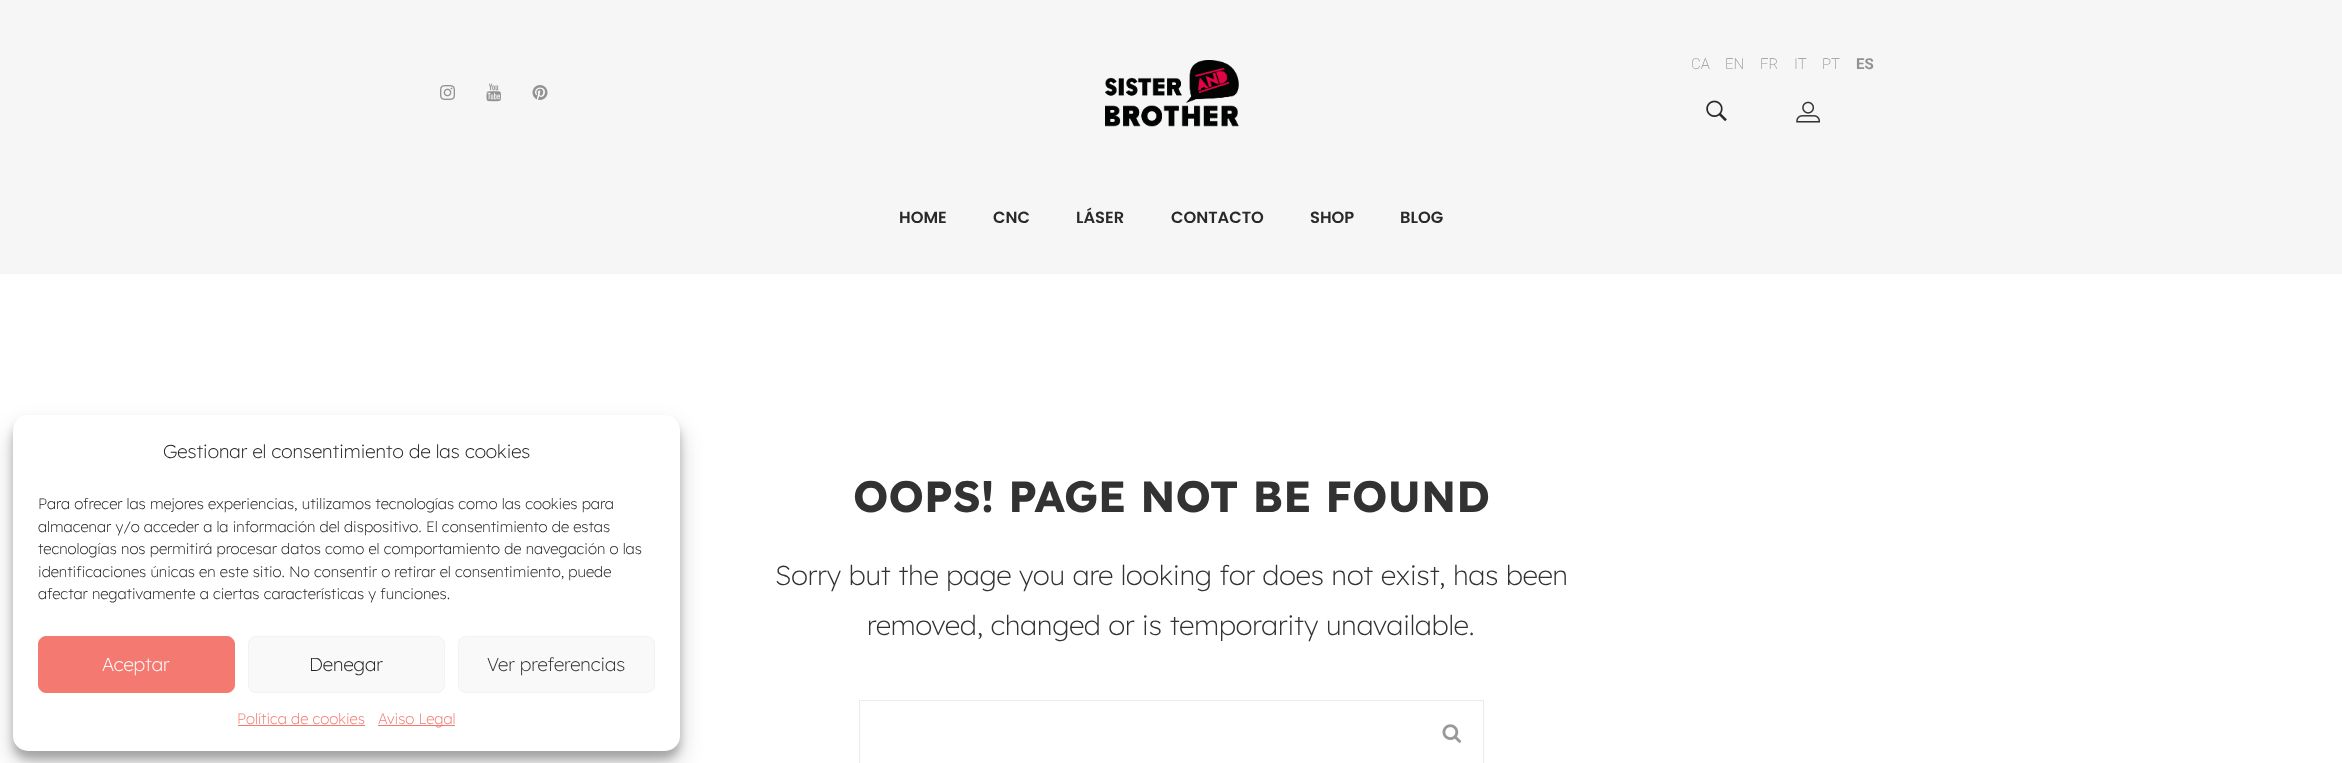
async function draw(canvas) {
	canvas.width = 2342;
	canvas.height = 763;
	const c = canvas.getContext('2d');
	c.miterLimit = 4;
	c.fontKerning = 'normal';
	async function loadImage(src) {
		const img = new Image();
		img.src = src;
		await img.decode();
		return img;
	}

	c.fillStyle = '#fff';
	c.fillRect(0, 0, 2342, 763);
	c.fillStyle = '#0000003b';
	c.filter = 'blur(4px)';
	c.beginPath();
	c.roundRect(13, 423, 667, 336, 15);
	c.fill();
	c.filter = 'none';
	c.fillStyle = '#00000030';
	c.filter = 'blur(12.5px)';
	c.beginPath();
	c.roundRect(13, 428, 667, 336, 15);
	c.fill();
	c.filter = 'none';
	c.fillStyle = '#fff';
	c.beginPath();
	c.roundRect(13, 415, 667, 336, 15);
	c.fill();
	c.font = '200 18.75px Lexend Deca';
	c.fillStyle = '#222';
	c.fillText('Gestionar el consentimiento de las cookies', 163, 458);
	c.font = '200 15px Lexend Deca';
	for (const [text, x, y] of [
		['Para ofrecer las mejores experiencias, utilizamos tecnologías como las cookies para', 38, 509],
		['almacenar y/o acceder a la información del dispositivo. El consentimiento de estas', 38, 532],
		['tecnologías nos permitirá procesar datos como el comportamiento de navegación o las', 38, 554],
		['identificaciones únicas en este sitio. No consentir o retirar el consentimiento, puede', 38, 577],
		['afectar negativamente a ciertas características y funciones.', 38, 599],
	]) {
		c.fillText(text, x, y);
	}
	c.fillStyle = '#f47a71';
	c.beginPath();
	c.roundRect(38.5, 636.5, 196, 56, 7.5);
	c.fill();
	c.strokeStyle = '#f47a71';
	c.stroke();
	c.font = '200 18.75px Lexend Deca';
	c.fillStyle = '#fff';
	c.fillText('Aceptar', 102, 671);
	c.fillStyle = '#f9f9f9';
	c.beginPath();
	c.roundRect(248.5, 636.5, 196, 56, 7.5);
	c.fill();
	c.strokeStyle = '#f2f2f2';
	c.stroke();
	c.fillStyle = '#222';
	c.fillText('Denegar', 309, 671);
	c.fillStyle = '#f9f9f9';
	c.beginPath();
	c.roundRect(458.5, 636.5, 196, 56, 7.5);
	c.fill();
	c.stroke();
	c.fillStyle = '#323232';
	c.fillText('Ver preferencias', 487, 671);
	c.font = '200 15px Lexend Deca';
	c.fillStyle = '#f47a71';
	c.fillText('Política de cookies', 237, 724);
	c.fillRect(238, 725, 127, 1);
	c.fillRect(378, 725, 77, 1);
	c.fillText('Aviso Legal', 378, 724);
	c.fillStyle = '#f6f6f6';
	c.fillRect(0, 0, 2342, 274);
	c.drawImage(await loadImage('img1.png'), 440, 85, 15, 15);
	c.drawImage(await loadImage('img2.png'), 486, 83, 15, 19);
	c.drawImage(await loadImage('img3.png'), 532, 85, 16, 15);
	c.drawImage(await loadImage('img4.png'), 1105, 60, 134, 67);
	c.font = '200 15px Roboto';
	c.fillStyle = '#929292';
	for (const [text, x, y] of [
		['CA', 1691, 69],
		['EN', 1725, 69],
		['FR', 1760, 69],
		['IT', 1794, 69],
		['PT', 1822, 69],
	]) {
		c.fillText(text, x, y);
	}
	c.font = 'bold 15px Roboto';
	c.fillText('ES', 1856, 69);
	c.drawImage(await loadImage('img5.png'), 1706, 100, 21, 22);
	c.drawImage(await loadImage('img6.png'), 1796, 101, 24, 22);
	c.font = '600 16.25px Poppins';
	c.fillStyle = '#292929';
	for (const [text, x, y] of [
		['HOME', 899, 223],
		['CNC', 993, 223],
		['LÁSER', 1076, 223],
		['CONTACTO', 1171, 223],
		['SHOP', 1310, 223],
		['BLOG', 1400, 223],
	]) {
		c.fillText(text, x, y);
	}
	c.font = 'bold 43.75px Lexend Deca';
	c.fillStyle = '#323232';
	c.fillText('OOPS! PAGE NOT BE FOUND', 853, 512);
	c.font = '200 27.5px Lexend Deca';
	c.fillText('Sorry but the page you are looking for does not exist, has been', 775, 585);
	c.fillText('removed, changed or is temporarity unavailable.', 867, 635);
	c.strokeStyle = '#ebebeb';
	c.strokeRect(859.5, 700.5, 624, 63);
	c.drawImage(await loadImage('img7.png'), 1442, 724, 19, 19);
}

draw(document.querySelector('canvas'));
